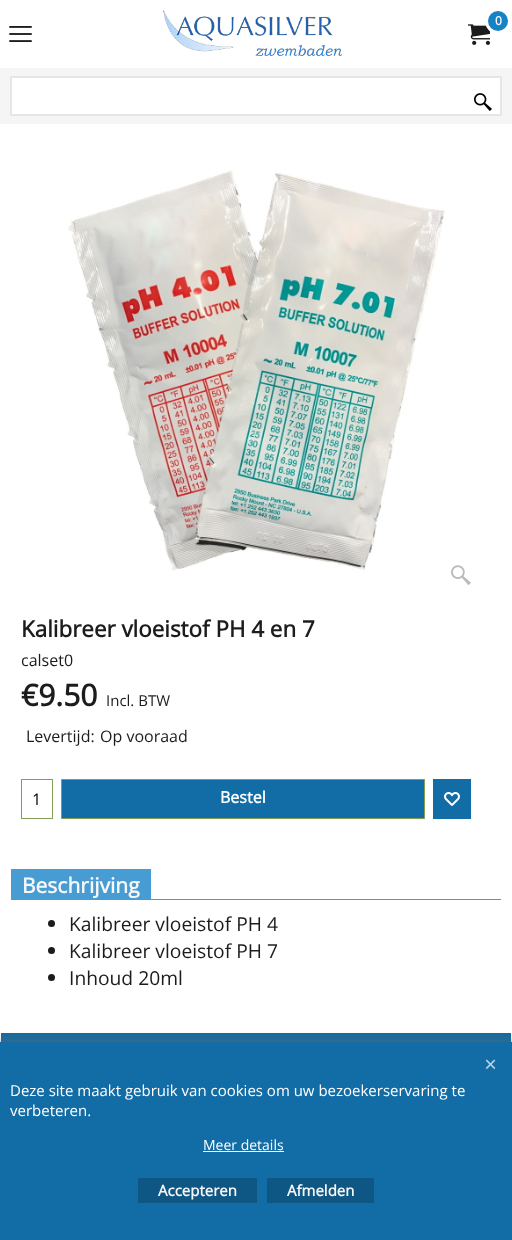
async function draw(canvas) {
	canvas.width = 512;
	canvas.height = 1240;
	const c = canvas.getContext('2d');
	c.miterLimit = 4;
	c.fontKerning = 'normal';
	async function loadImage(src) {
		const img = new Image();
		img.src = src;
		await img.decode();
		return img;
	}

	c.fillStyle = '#fff';
	c.fillRect(0, 0, 512, 1240);
	c.drawImage(await loadImage('img1.png'), 163, 10, 179, 46);
	c.drawImage(await loadImage('img2.png'), 468, 24, 22, 21);
	c.fillStyle = '#1682c6';
	c.beginPath();
	c.arc(498, 21, 11.5, 0, 2 * Math.PI);
	c.fill();
	c.strokeStyle = '#fff';
	c.lineWidth = 3;
	c.stroke();
	c.font = 'bold 12px Open Sans';
	c.fillStyle = '#f7f7f7';
	c.fillText('0', 495, 25);
	c.drawImage(await loadImage('img3.png'), 9, 26, 23, 16);
	c.fillStyle = '#f5f5f6';
	c.fillRect(0, 68, 512, 56);
	c.fillStyle = '#fff';
	c.beginPath();
	c.rect(11, 77, 490, 38);
	c.fill();
	c.strokeStyle = '#e6e6e6';
	c.lineWidth = 2;
	c.stroke();
	c.drawImage(await loadImage('img4.png'), 474, 93, 18, 18);
	c.drawImage(await loadImage('img5.png'), 68, 170, 377, 401);
	c.drawImage(await loadImage('img6.png'), 451, 565, 20, 20);
	c.font = 'bold 22.4px Open Sans';
	c.fillStyle = '#1c1c1c';
	c.fillText('Kalibreer vloeistof PH 4 en 7', 21, 637);
	c.font = '16px Open Sans';
	c.fillText('calset0', 21, 666);
	c.font = 'bold 30px Open Sans';
	c.fillText('€9.50', 21, 706);
	c.font = '15px Open Sans';
	c.fillText('Incl. BTW', 106, 706);
	c.font = '16px Open Sans';
	c.fillText('Levertijd:', 26, 742);
	c.fillText('Op vooraad', 100, 742);
	c.strokeStyle = '#829d57';
	c.lineWidth = 1;
	c.strokeRect(21.5, 779.5, 31, 39);
	c.fillStyle = '#000';
	c.fillText('1', 32, 805);
	c.fillStyle = '#126ca5';
	c.beginPath();
	c.rect(61.5, 779.5, 363, 39);
	c.fill();
	c.stroke();
	c.font = 'bold 16px Open Sans';
	c.fillStyle = '#fff';
	c.fillText('Bestel', 220, 803);
	c.fillStyle = '#126ca5';
	c.fillRect(433, 779, 38, 40);
	c.drawImage(await loadImage('img7.png'), 444, 792, 16, 14);
	c.fillStyle = '#479dd3';
	c.fillRect(11, 869, 140, 31);
	c.font = 'bold 21px Open Sans';
	c.fillStyle = '#f7f7f7';
	c.fillText('Beschrijving', 22, 893);
	c.fillStyle = '#479dd3';
	c.fillRect(151, 899, 350, 1);
	c.fillStyle = '#1c1c1c';
	c.beginPath();
	c.arc(51.5, 923.5, 3.5, 0, 2 * Math.PI);
	c.fill();
	c.font = '19.25px Open Sans';
	c.fillText('Kalibreer vloeistof PH 4', 69, 931);
	c.beginPath();
	c.arc(51.5, 950.5, 3.5, 0, 2 * Math.PI);
	c.fill();
	c.fillText('Kalibreer vloeistof PH 7', 69, 958);
	c.beginPath();
	c.arc(51.5, 977.5, 3.5, 0, 2 * Math.PI);
	c.fill();
	c.fillText('Inhoud 20ml', 69, 985);
	c.fillStyle = '#126ca5';
	c.fillRect(1, 1033, 510, 9);
	c.fillStyle = '#666';
	c.filter = 'blur(5px)';
	c.beginPath();
	c.rect(0, 1042, 512, 198);
	c.fill();
	c.filter = 'none';
	c.fillStyle = '#126ca5';
	c.fillRect(0, 1042, 512, 198);
	c.drawImage(await loadImage('img8.png'), 485, 1059, 11, 10);
	c.font = '15px Open Sans';
	c.fillStyle = '#fff';
	c.fillText('Deze site maakt gebruik van cookies om uw bezoekerservaring te', 10, 1096);
	c.fillText('verbeteren.', 10, 1116);
	c.font = '14px Open Sans';
	c.fillText('Meer details', 203, 1150);
	c.fillRect(203, 1151, 81, 1);
	c.fillStyle = '#0e5684';
	c.fillRect(138, 1178, 119, 25);
	c.font = 'bold 15px Open Sans';
	c.fillStyle = '#f7f7f7';
	c.fillText('Accepteren', 158, 1196);
	c.fillStyle = '#0e5684';
	c.fillRect(267, 1178, 107, 25);
	c.fillStyle = '#f7f7f7';
	c.fillText('Afmelden', 287, 1196);
}

draw(document.querySelector('canvas'));
